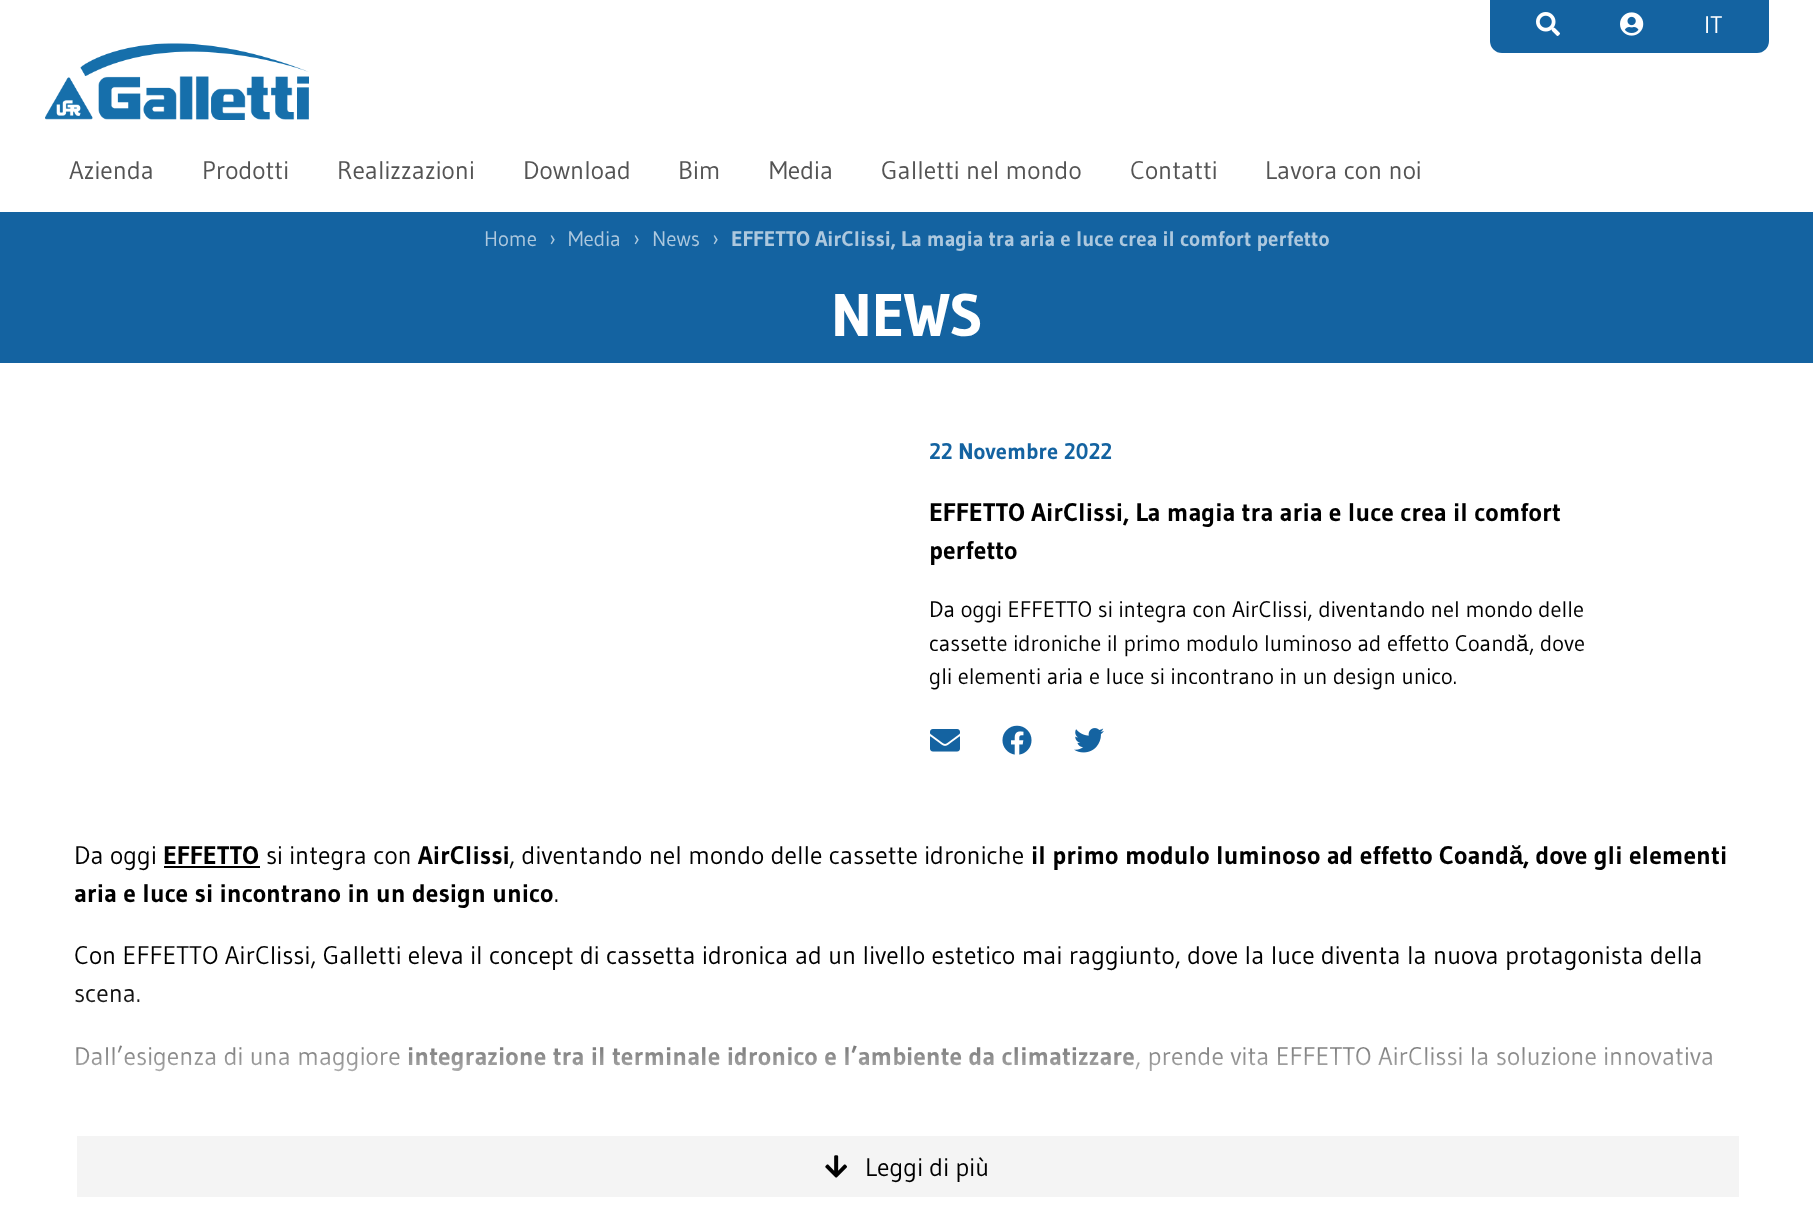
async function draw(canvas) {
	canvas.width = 1813;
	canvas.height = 1232;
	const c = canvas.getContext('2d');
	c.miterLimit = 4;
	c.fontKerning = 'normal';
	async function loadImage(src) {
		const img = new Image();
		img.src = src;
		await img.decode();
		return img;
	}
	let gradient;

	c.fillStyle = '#fff';
	c.fillRect(0, 0, 1813, 1232);
	c.fillStyle = '#1463a1';
	c.beginPath();
	c.roundRect(1490, 0, 279, 53, [0, 0, 12, 12]);
	c.fill();
	c.drawImage(await loadImage('img1.png'), 1536, 12, 24, 24);
	c.drawImage(await loadImage('img2.png'), 1620, 12, 24, 24);
	c.font = '24px Gudea';
	c.fillStyle = '#fff';
	c.fillText('IT', 1704, 33);
	c.drawImage(await loadImage('img3.png'), 45, 43, 264, 77);
	c.font = '25.5px Gudea';
	c.fillStyle = '#545454';
	for (const [text, x, y] of [
		['Azienda', 69, 179],
		['Prodotti', 202, 179],
		['Realizzazioni', 337, 179],
		['Download', 523, 179],
		['Bim', 678, 179],
		['Media', 769, 179],
		['Galletti nel mondo', 881, 179],
		['Contatti', 1130, 179],
		['Lavora con noi', 1265, 179],
	]) {
		c.fillText(text, x, y);
	}
	c.fillStyle = '#1463a1';
	c.fillRect(0, 212, 1813, 151);
	c.font = '21px Gudea';
	c.fillStyle = '#adc8de';
	for (const [text, x, y] of [
		['Home', 484, 246],
		['›', 549, 246],
		['Media', 568, 246],
		['›', 633, 246],
		['News', 652, 246],
		['›', 712, 246],
	]) {
		c.fillText(text, x, y);
	}
	c.font = 'bold 21px Gudea';
	c.fillText('EFFETTO AirClissi, La magia tra aria e luce crea il comfort perfetto', 731, 246);
	c.font = 'bold 60px Gudea';
	c.fillStyle = '#fff';
	c.fillText('NEWS', 831, 336);
	c.font = 'bold 22.5px Gudea';
	c.fillStyle = '#1463a1';
	c.fillText('22 Novembre 2022', 929, 459);
	c.font = 'bold 25.5px Gudea';
	c.fillStyle = '#000';
	c.fillText('EFFETTO AirClissi, La magia tra aria e luce crea il comfort', 929, 521);
	c.fillText('perfetto', 929, 559);
	c.font = '22.5px Gudea';
	c.fillText('Da oggi EFFETTO si integra con AirClissi, diventando nel mondo delle', 929, 617);
	c.fillText('cassette idroniche il primo modulo luminoso ad effetto Coand', 929, 651);
	c.font = '22.5px Liberation Sans';
	c.fillText('ă', 1516, 651);
	c.font = '22.5px Gudea';
	c.fillText(', dove', 1529, 651);
	c.fillText('gli elementi aria e luce si incontrano in un design unico.', 929, 684);
	c.drawImage(await loadImage('img4.png'), 930, 729, 30, 23);
	c.drawImage(await loadImage('img5.png'), 1002, 725, 30, 30);
	c.drawImage(await loadImage('img6.png'), 1074, 728, 30, 25);
	c.font = '25.5px Gudea';
	c.fillText('Da oggi', 74, 864);
	c.font = 'bold 25.5px Gudea';
	c.fillText('EFFETTO', 163, 864);
	c.fillRect(164, 866, 96, 2);
	c.font = '25.5px Gudea';
	c.fillText('si integra con', 266, 864);
	c.font = 'bold 25.5px Gudea';
	c.fillText('AirClissi', 418, 864);
	c.font = '25.5px Gudea';
	c.fillText(', diventando nel mondo delle cassette idroniche', 509, 864);
	c.font = 'bold 25.5px Gudea';
	c.fillText('il primo modulo luminoso ad effetto Coand', 1031, 864);
	c.font = 'bold 25.5px Liberation Sans';
	c.fillText('ă', 1509, 864);
	c.font = 'bold 25.5px Gudea';
	c.fillText(', dove gli elementi', 1523, 864);
	c.fillText('aria e luce si incontrano in un design unico', 74, 902);
	c.font = '25.5px Gudea';
	for (const [text, x, y] of [
		['.', 554, 902],
		['Con EFFETTO AirClissi, Galletti eleva il concept di cassetta idronica ad un livello estetico mai raggiunto, dove la luce diventa la nuova protagonista della', 74, 964],
		['scena.', 74, 1002],
		['Dall’esigenza di una maggiore', 74, 1065],
	]) {
		c.fillText(text, x, y);
	}
	c.font = 'bold 25.5px Gudea';
	c.fillText('integrazione tra il terminale idronico e l’ambiente da climatizzare', 407, 1065);
	c.font = '25.5px Gudea';
	c.fillText(', prende vita EFFETTO AirClissi la soluzione innovativa', 1135, 1065);
	gradient = c.createLinearGradient(908, 985, 908, 1136);
	gradient.addColorStop(0, '#ffffff00');
	gradient.addColorStop(0.85, '#fff');
	c.fillStyle = gradient;
	c.fillRect(75, 989, 1638, 83);
	c.fillStyle = '#f4f4f4';
	c.fillRect(77, 1136, 1662, 61);
	c.drawImage(await loadImage('img7.png'), 825, 1155, 22, 23);
	c.fillStyle = '#000';
	c.fillText('Leggi di più', 865, 1176);
}

draw(document.querySelector('canvas'));
